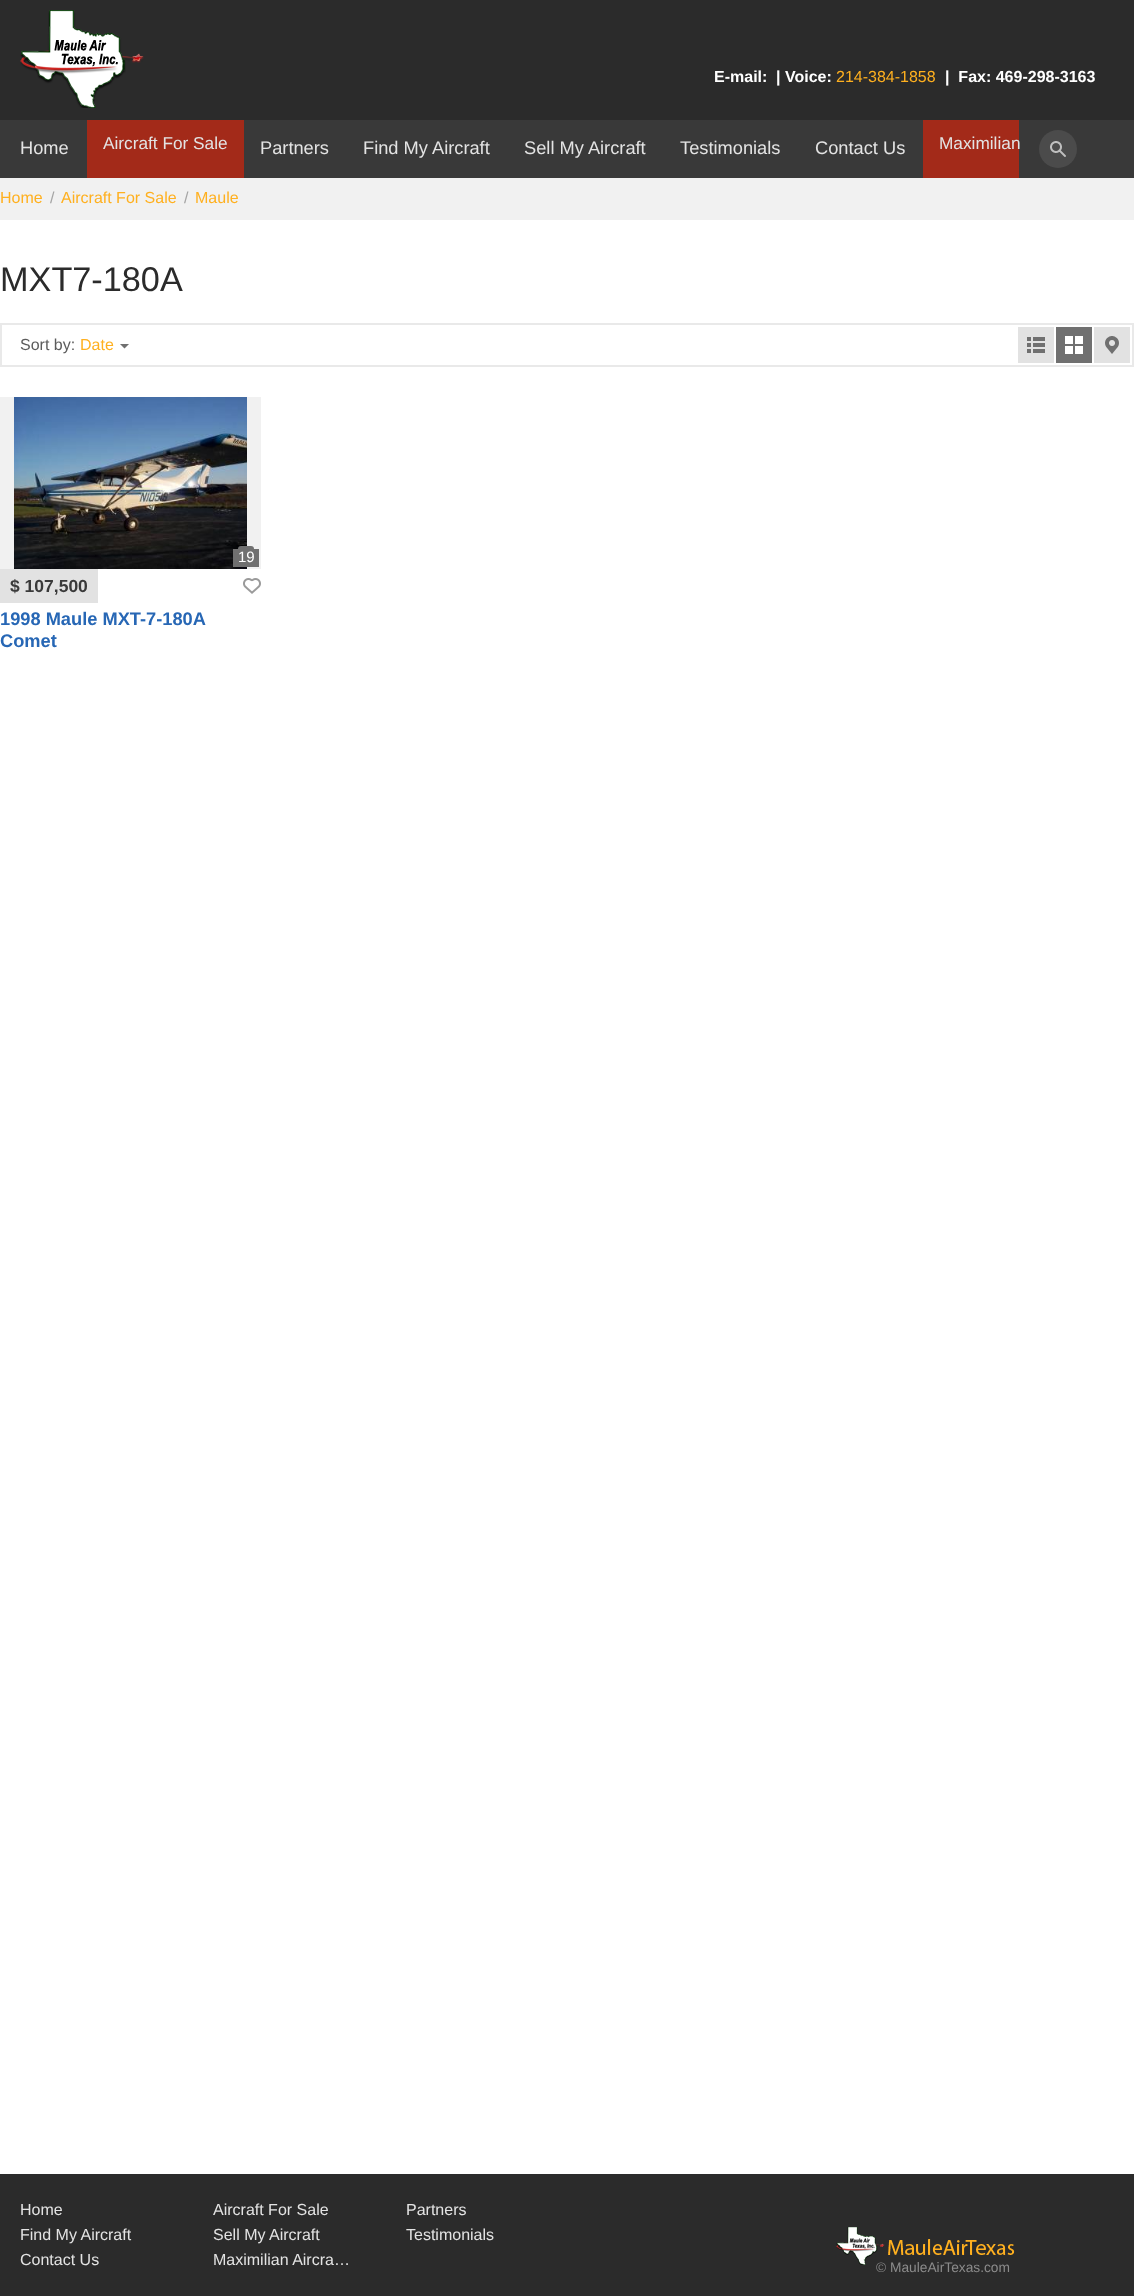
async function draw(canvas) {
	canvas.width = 1134;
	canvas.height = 2296;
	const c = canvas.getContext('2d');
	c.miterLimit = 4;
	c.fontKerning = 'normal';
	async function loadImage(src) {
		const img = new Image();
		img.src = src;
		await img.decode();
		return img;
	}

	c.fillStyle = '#fff';
	c.fillRect(0, 0, 1134, 2296);
	c.fillStyle = '#2b2b2b';
	c.fillRect(0, 0, 1134, 120);
	c.drawImage(await loadImage('img1.png'), 20, 10, 124, 98);
	c.font = 'bold 16px Liberation Sans';
	c.fillStyle = '#fff';
	c.fillText('E-mail:', 714, 82);
	c.fillText('| Voice:', 776, 82);
	c.font = '16px Liberation Sans';
	c.fillStyle = '#ffb01f';
	c.fillText('214-384-1858', 836, 82);
	c.font = 'bold 16px Liberation Sans';
	c.fillStyle = '#fff';
	c.fillText('|  Fax: 469-298-3163', 945, 82);
	c.fillStyle = '#393939';
	c.fillRect(0, 120, 1134, 58);
	c.font = '18.25px Liberation Sans';
	c.fillStyle = '#e3e3e3';
	c.fillText('Home', 20, 154);
	c.fillStyle = '#a32a19';
	c.fillRect(87, 120, 157, 58);
	c.font = '17.25px Liberation Sans';
	c.fillStyle = '#e3e3e3';
	c.fillText('Aircraft For Sale', 103, 149);
	c.font = '18.25px Liberation Sans';
	for (const [text, x, y] of [
		['Partners', 260, 154],
		['Find My Aircraft', 363, 154],
		['Sell My Aircraft', 524, 154],
		['Testimonials', 680, 154],
		['Contact Us', 815, 154],
	]) {
		c.fillText(text, x, y);
	}
	c.fillStyle = '#a32a19';
	c.fillRect(923, 120, 96, 58);
	c.font = '17.25px Liberation Sans';
	c.fillStyle = '#e3e3e3';
	c.fillText('Maximilian', 939, 149);
	c.fillStyle = '#4b4b4b';
	c.beginPath();
	c.arc(1058, 149, 19, 0, 2 * Math.PI);
	c.fill();
	c.drawImage(await loadImage('img2.png'), 1050, 141, 16, 16);
	c.fillStyle = '#f1f1f1';
	c.fillRect(0, 178, 1134, 42);
	c.font = '16px Liberation Sans';
	c.fillStyle = '#ffb01f';
	c.fillText('Home', 0, 203);
	c.fillStyle = '#a4a4a4';
	c.fillText('/', 50, 203);
	c.fillStyle = '#ffb01f';
	c.fillText('Aircraft For Sale', 61, 203);
	c.fillStyle = '#a4a4a4';
	c.fillText('/', 184, 203);
	c.fillStyle = '#ffb01f';
	c.fillText('Maule', 195, 203);
	c.font = '34.25px Liberation Sans';
	c.fillStyle = '#2b2b2b';
	c.fillText('MXT7-180A', 0, 291);
	c.strokeStyle = '#e9e9e9';
	c.lineWidth = 2;
	c.strokeRect(1, 324, 1132, 42);
	c.font = '16px Liberation Sans';
	c.fillStyle = '#5c5c5c';
	c.fillText('Sort by:', 20, 350);
	c.fillStyle = '#ffb01f';
	c.fillText('Date', 80, 350);
	c.drawImage(await loadImage('img3.png'), 120, 344, 9, 5);
	for (const [x, y, w, h, color] of [
		[1018, 327, 36, 36, '#e2e2e2'],
		[1027, 337, 4, 4, '#707070'],
		[1033, 337, 12, 4, '#707070'],
		[1027, 343, 4, 4, '#707070'],
		[1033, 343, 12, 4, '#707070'],
		[1027, 349, 4, 4, '#707070'],
		[1033, 349, 12, 4, '#707070'],
		[1056, 327, 36, 36, '#707070'],
		[1065, 336, 8, 8, '#fff'],
		[1075, 336, 8, 8, '#fff'],
		[1065, 346, 8, 8, '#fff'],
		[1075, 346, 8, 8, '#fff'],
		[1094, 327, 36, 36, '#e2e2e2'],
	]) {
		c.fillStyle = color;
		c.fillRect(x, y, w, h);
	}
	c.drawImage(await loadImage('img4.png'), 1105, 336, 14, 18);
	c.fillStyle = '#f1f1f1';
	c.fillRect(0, 397, 261, 172);
	c.drawImage(await loadImage('img5.png'), 14, 397, 233, 172);
	c.fillStyle = '#707070';
	c.fillRect(233, 549, 26, 18);
	c.beginPath();
	c.roundRect(238, 546, 16, 3, [3, 3, 0, 0]);
	c.fill();
	c.font = '15px Liberation Sans';
	c.fillStyle = '#fff';
	c.fillText('19', 238, 562);
	c.fillStyle = '#e2e2e2';
	c.fillRect(0, 569, 98, 34);
	c.font = 'bold 17.5px Liberation Sans';
	c.fillStyle = '#3a3a3a';
	c.fillText('$ 107,500', 10, 592);
	c.drawImage(await loadImage('img6.png'), 243, 578, 18, 16);
	c.font = 'bold 18.25px Liberation Sans';
	c.fillStyle = '#2767b5';
	c.fillText('1998 Maule MXT-7-180A', 0, 625);
	c.fillText('Comet', 0, 647);
	c.fillStyle = '#2b2b2b';
	c.fillRect(0, 2174, 1134, 122);
	c.font = '16px Liberation Sans';
	c.fillStyle = '#e3e3e3';
	for (const [text, x, y] of [
		['Home', 20, 2215],
		['Aircraft For Sale', 213, 2215],
		['Partners', 406, 2215],
		['Find My Aircraft', 20, 2240],
		['Sell My Aircraft', 213, 2240],
		['Testimonials', 406, 2240],
		['Contact Us', 20, 2265],
		['Maximilian Aircra…', 213, 2265],
	]) {
		c.fillText(text, x, y);
	}
	c.drawImage(await loadImage('img7.png'), 836, 2227, 179, 38);
	c.font = '13.75px Liberation Sans';
	c.fillStyle = '#858585';
	c.fillText('©', 876, 2272);
	c.fillStyle = '#8b8b8b';
	c.fillText('MauleAirTexas.com', 890, 2272);
}

draw(document.querySelector('canvas'));
